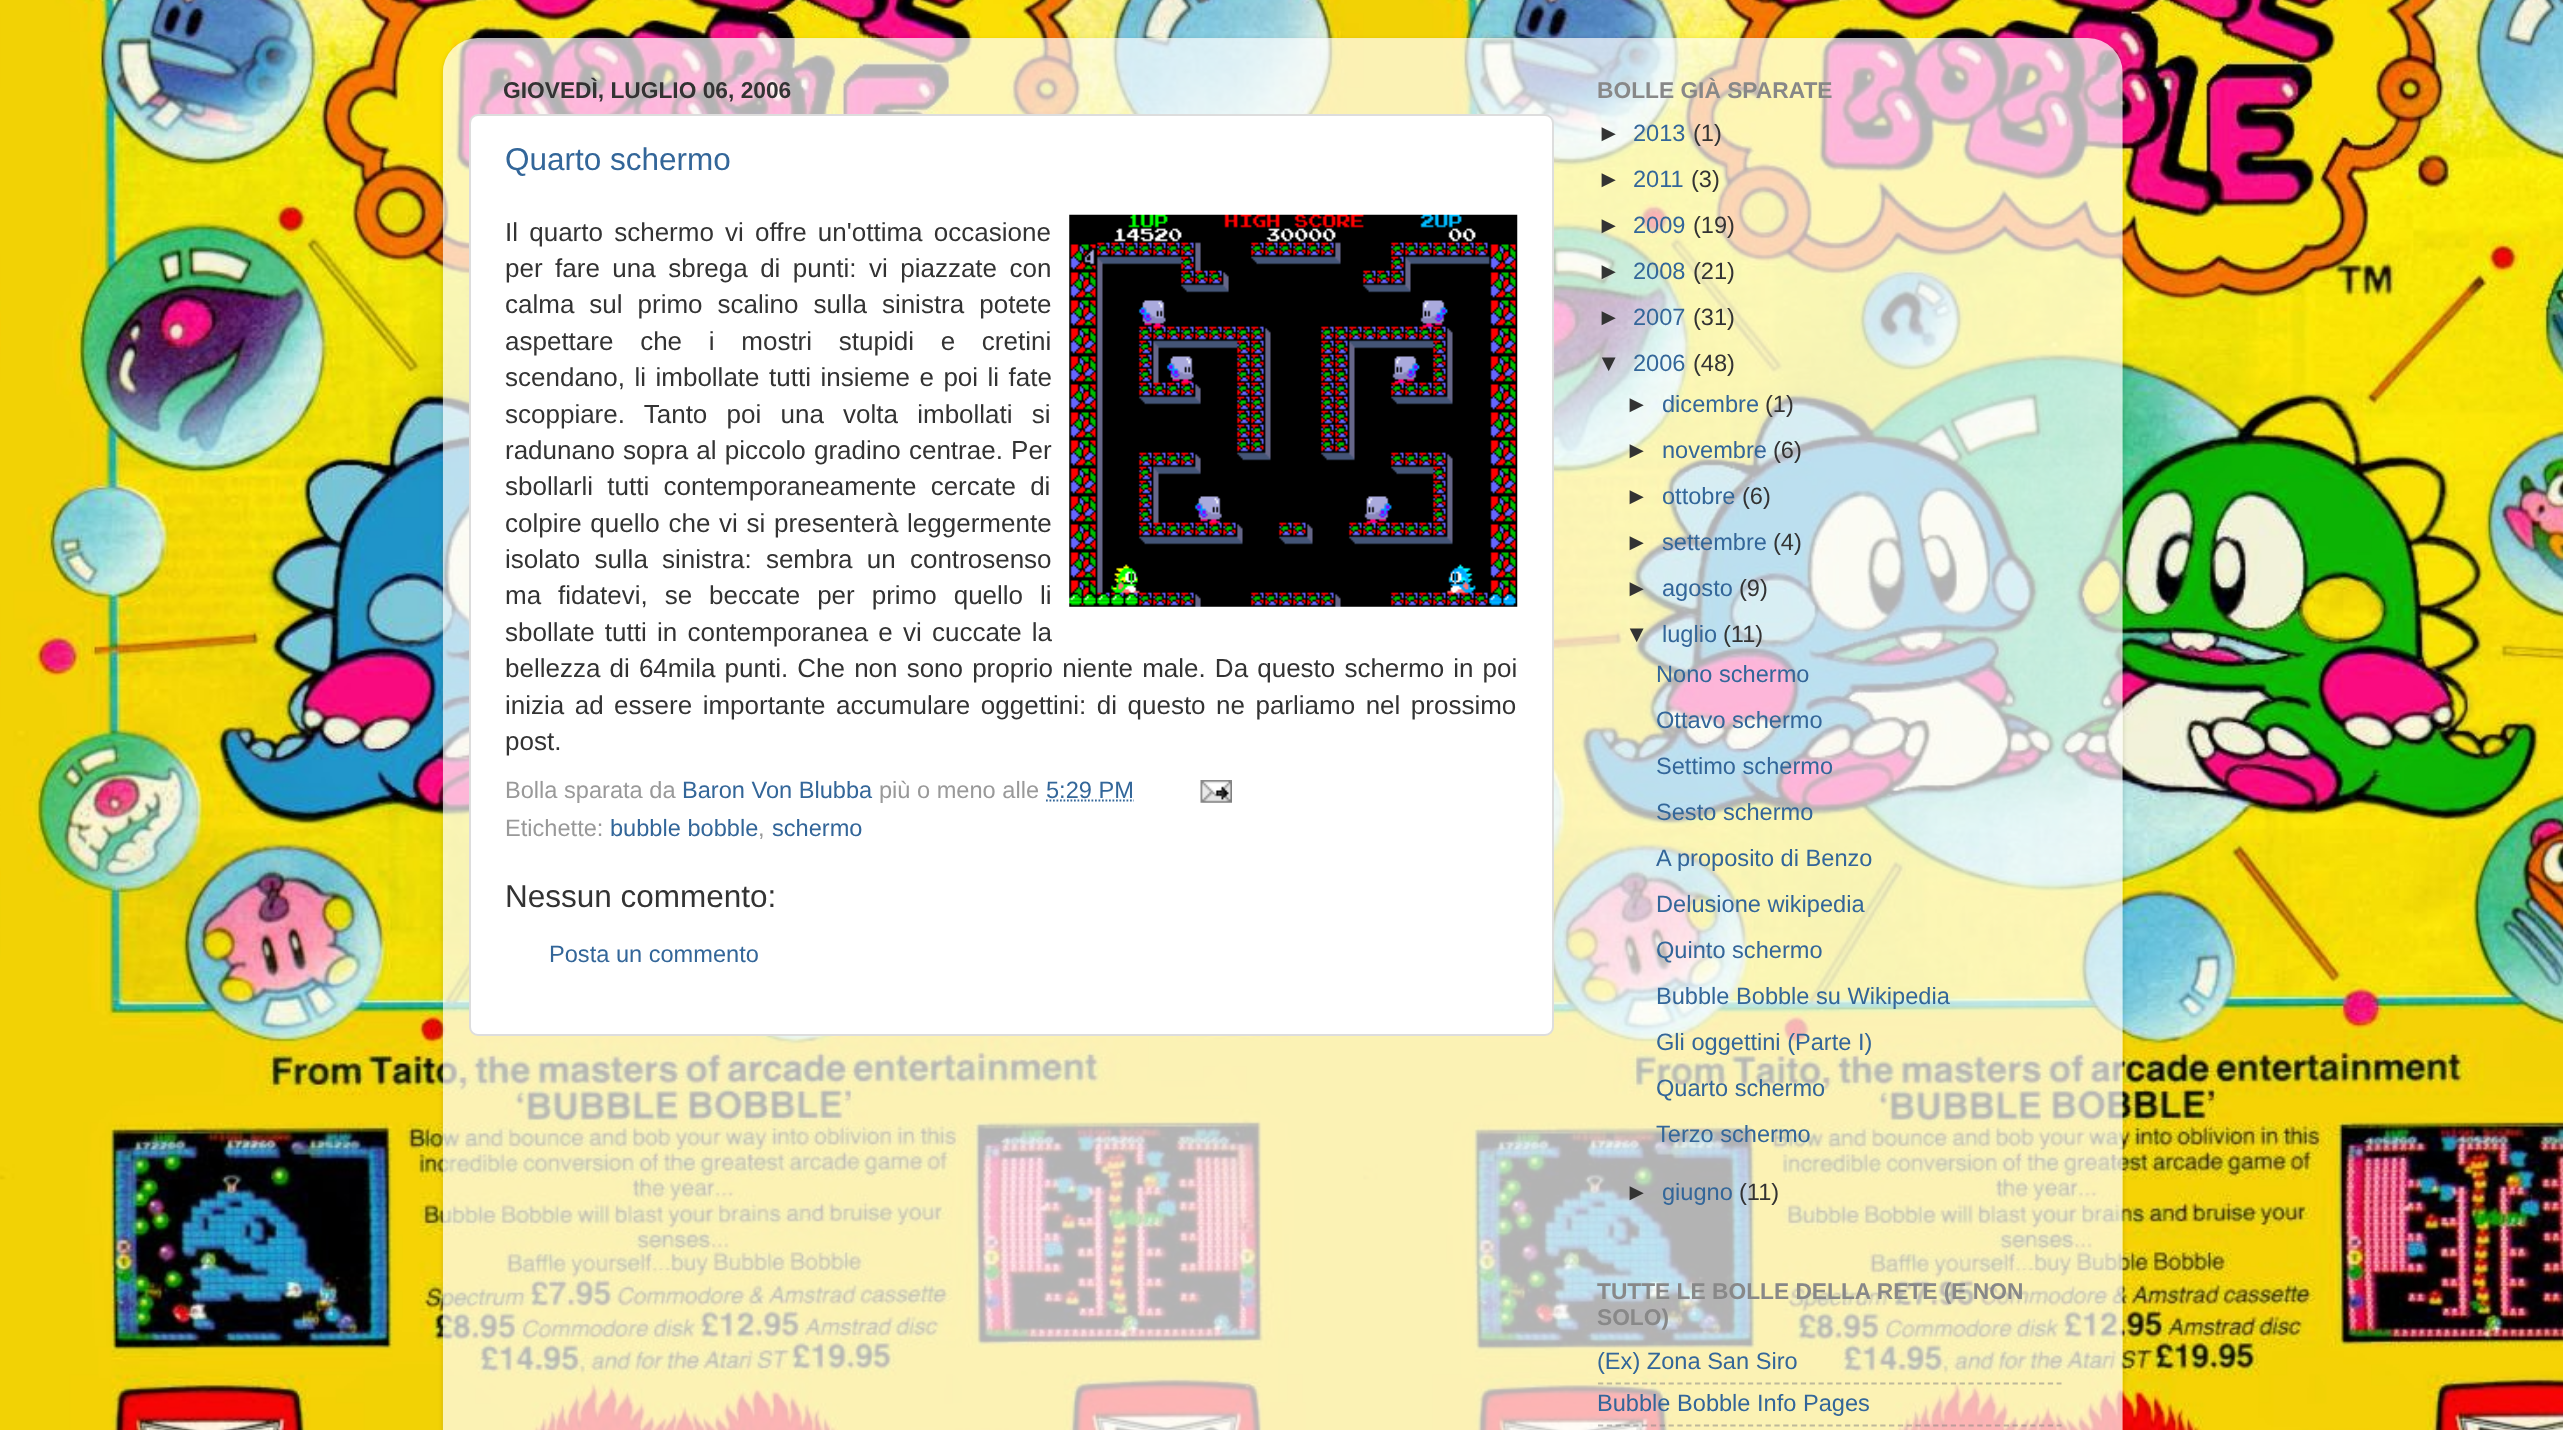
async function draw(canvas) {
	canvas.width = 2563;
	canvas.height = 1430;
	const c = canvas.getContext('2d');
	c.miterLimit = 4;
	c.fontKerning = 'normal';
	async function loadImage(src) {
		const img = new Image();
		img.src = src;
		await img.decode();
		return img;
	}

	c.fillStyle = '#fff';
	c.fillRect(0, 0, 2563, 1430);
	c.drawImage(await loadImage('img1.png'), 0, 0, 2563, 1430);
	c.save();
	c.beginPath();
	c.moveTo(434, 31);
	c.lineTo(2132, 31);
	c.lineTo(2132, 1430);
	c.lineTo(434, 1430);
	c.closePath();
	c.moveTo(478, 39);
	c.lineTo(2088, 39);
	c.bezierCurveTo(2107.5, 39, 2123, 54.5, 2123, 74);
	c.lineTo(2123, 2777);
	c.lineTo(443, 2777);
	c.lineTo(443, 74);
	c.bezierCurveTo(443, 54.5, 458.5, 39, 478, 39);
	c.closePath();
	c.clip('evenodd');
	c.fillStyle = '#00000026';
	c.filter = 'blur(2.5px)';
	c.beginPath();
	c.roundRect(443, 40, 1680, 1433, 35);
	c.fill();
	c.filter = 'none';
	c.restore();
	c.drawImage(await loadImage('img2.png'), 442, 38, 1681, 1392);
	c.font = 'bold 22.75px Liberation Sans';
	c.fillStyle = '#333';
	c.fillText('GIOVEDÌ, LUGLIO 06, 2006', 503, 98);
	c.fillStyle = '#fff';
	c.beginPath();
	c.roundRect(470, 115, 1083, 920, 8);
	c.fill();
	c.strokeStyle = '#ddd';
	c.lineWidth = 2;
	c.stroke();
	c.font = '31.5px Liberation Sans';
	c.fillStyle = '#369';
	c.fillText('Quarto schermo', 505, 170);
	c.wordSpacing = '4px';
	c.font = '26px Liberation Sans';
	c.fillStyle = '#333';
	c.fillText('Il quarto schermo vi offre un\'ottima occasione', 505, 241);
	c.drawImage(await loadImage('img3.png'), 1069, 214, 449, 393);
	c.wordSpacing = '5.25px';
	c.fillText('per fare una sbrega di punti: vi piazzate con', 505, 277);
	c.wordSpacing = '7.75px';
	c.fillText('calma sul primo scalino sulla sinistra potete', 505, 313);
	c.wordSpacing = '19.5px';
	c.fillText('aspettare che i mostri stupidi e cretini', 505, 350);
	c.wordSpacing = '2.25px';
	c.fillText('scendano, li imbollate tutti insieme e poi li fate', 505, 386);
	c.wordSpacing = '12px';
	c.fillText('scoppiare. Tanto poi una volta imbollati si', 505, 423);
	c.wordSpacing = '1px';
	c.fillText('radunano sopra al piccolo gradino centrae. Per', 505, 459);
	c.wordSpacing = '7px';
	c.fillText('sbollarli tutti contemporaneamente cercate di', 505, 495);
	c.wordSpacing = '1.5px';
	c.fillText('colpire quello che vi si presenterà leggermente', 505, 532);
	c.wordSpacing = '7px';
	c.fillText('isolato sulla sinistra: sembra un controsenso', 505, 568);
	c.wordSpacing = '9.75px';
	c.fillText('ma fidatevi, se beccate per primo quello li', 505, 604);
	c.wordSpacing = '3px';
	c.fillText('sbollate tutti in contemporanea e vi cuccate la', 505, 641);
	c.wordSpacing = '1.9px';
	c.fillText('bellezza di 64mila punti. Che non sono proprio niente male. Da questo schermo in poi', 505, 677);
	c.wordSpacing = '3.25px';
	c.fillText('inizia ad essere importante accumulare oggettini: di questo ne parliamo nel prossimo', 505, 714);
	c.wordSpacing = '0px';
	c.fillText('post.', 505, 750);
	c.font = '23.6px Liberation Sans';
	c.fillStyle = '#999';
	c.fillText('Bolla sparata da', 505, 798);
	c.fillStyle = '#369';
	c.fillText('Baron Von Blubba', 682, 798);
	c.fillStyle = '#999';
	c.fillText('più o meno alle', 879, 798);
	c.fillStyle = '#369';
	c.fillText('5:29 PM', 1046, 798);
	c.beginPath();
	c.moveTo(1046, 800.5);
	c.lineTo(1134, 800.5);
	c.strokeStyle = '#369';
	c.lineWidth = 1.8;
	c.setLineDash([1.75, 1.75]);
	c.stroke();
	c.drawImage(await loadImage('img4.png'), 1200, 780, 32, 23);
	c.fillStyle = '#999';
	c.fillText('Etichette:', 505, 836);
	c.fillStyle = '#369';
	c.fillText('bubble bobble', 610, 836);
	c.fillStyle = '#999';
	c.fillText(',', 758, 836);
	c.fillStyle = '#369';
	c.fillText('schermo', 772, 836);
	c.font = '31.5px Liberation Sans';
	c.fillStyle = '#333';
	c.fillText('Nessun commento:', 505, 907);
	c.font = '23.6px Liberation Sans';
	c.fillStyle = '#369';
	c.fillText('Posta un commento', 549, 962);
	c.font = 'bold 22.75px Liberation Sans';
	c.fillStyle = '#888';
	c.fillText('BOLLE GIÀ SPARATE', 1597, 98);
	c.font = '23.6px Liberation Sans';
	c.fillStyle = '#333';
	c.fillText('►', 1597, 141);
	c.fillStyle = '#369';
	c.fillText('2013', 1633, 141);
	c.fillStyle = '#333';
	c.fillText('(1)', 1693, 141);
	c.fillText('►', 1597, 187);
	c.fillStyle = '#369';
	c.fillText('2011', 1633, 187);
	c.fillStyle = '#333';
	c.fillText('(3)', 1691, 187);
	c.fillText('►', 1597, 233);
	c.fillStyle = '#369';
	c.fillText('2009', 1633, 233);
	c.fillStyle = '#333';
	c.fillText('(19)', 1693, 233);
	c.fillText('►', 1597, 279);
	c.fillStyle = '#369';
	c.fillText('2008', 1633, 279);
	c.fillStyle = '#333';
	c.fillText('(21)', 1693, 279);
	c.fillText('►', 1597, 325);
	c.fillStyle = '#369';
	c.fillText('2007', 1633, 325);
	c.fillStyle = '#333';
	c.fillText('(31)', 1693, 325);
	c.fillText('▼', 1597, 371);
	c.fillStyle = '#369';
	c.fillText('2006', 1633, 371);
	c.fillStyle = '#333';
	c.fillText('(48)', 1693, 371);
	c.fillText('►', 1625, 412);
	c.fillStyle = '#369';
	c.fillText('dicembre', 1662, 412);
	c.fillStyle = '#333';
	c.fillText('(1)', 1765, 412);
	c.fillText('►', 1625, 458);
	c.fillStyle = '#369';
	c.fillText('novembre', 1662, 458);
	c.fillStyle = '#333';
	c.fillText('(6)', 1773, 458);
	c.fillText('►', 1625, 504);
	c.fillStyle = '#369';
	c.fillText('ottobre', 1662, 504);
	c.fillStyle = '#333';
	c.fillText('(6)', 1742, 504);
	c.fillText('►', 1625, 550);
	c.fillStyle = '#369';
	c.fillText('settembre', 1662, 550);
	c.fillStyle = '#333';
	c.fillText('(4)', 1773, 550);
	c.fillText('►', 1625, 596);
	c.fillStyle = '#369';
	c.fillText('agosto', 1662, 596);
	c.fillStyle = '#333';
	c.fillText('(9)', 1739, 596);
	c.fillText('▼', 1625, 642);
	c.fillStyle = '#369';
	c.fillText('luglio', 1662, 642);
	c.fillStyle = '#333';
	c.fillText('(11)', 1723, 642);
	c.fillStyle = '#369';
	for (const [text, x, y] of [
		['Nono schermo', 1656, 682],
		['Ottavo schermo', 1656, 728],
		['Settimo schermo', 1656, 774],
		['Sesto schermo', 1656, 820],
		['A proposito di Benzo', 1656, 866],
		['Delusione wikipedia', 1656, 912],
		['Quinto schermo', 1656, 958],
		['Bubble Bobble su Wikipedia', 1656, 1004],
		['Gli oggettini (Parte I)', 1656, 1050],
		['Quarto schermo', 1656, 1096],
		['Terzo schermo', 1656, 1142],
	]) {
		c.fillText(text, x, y);
	}
	c.fillStyle = '#333';
	c.fillText('►', 1625, 1200);
	c.fillStyle = '#369';
	c.fillText('giugno', 1662, 1200);
	c.fillStyle = '#333';
	c.fillText('(11)', 1739, 1200);
	c.font = 'bold 22.75px Liberation Sans';
	c.fillStyle = '#888';
	c.fillText('TUTTE LE BOLLE DELLA RETE (E NON', 1597, 1299);
	c.fillText('SOLO)', 1597, 1325);
	c.font = '23.6px Liberation Sans';
	c.fillStyle = '#369';
	c.fillText('(Ex) Zona San Siro', 1597, 1369);
	c.beginPath();
	c.moveTo(1598, 1383.5);
	c.lineTo(2061.5, 1383.5);
	c.strokeStyle = '#80808080';
	c.setLineDash([5.25, 3.57]);
	c.stroke();
	c.fillText('Bubble Bobble Info Pages', 1597, 1411);
	c.beginPath();
	c.moveTo(1598, 1425.5);
	c.lineTo(2061.5, 1425.5);
	c.stroke();
}

draw(document.querySelector('canvas'));
